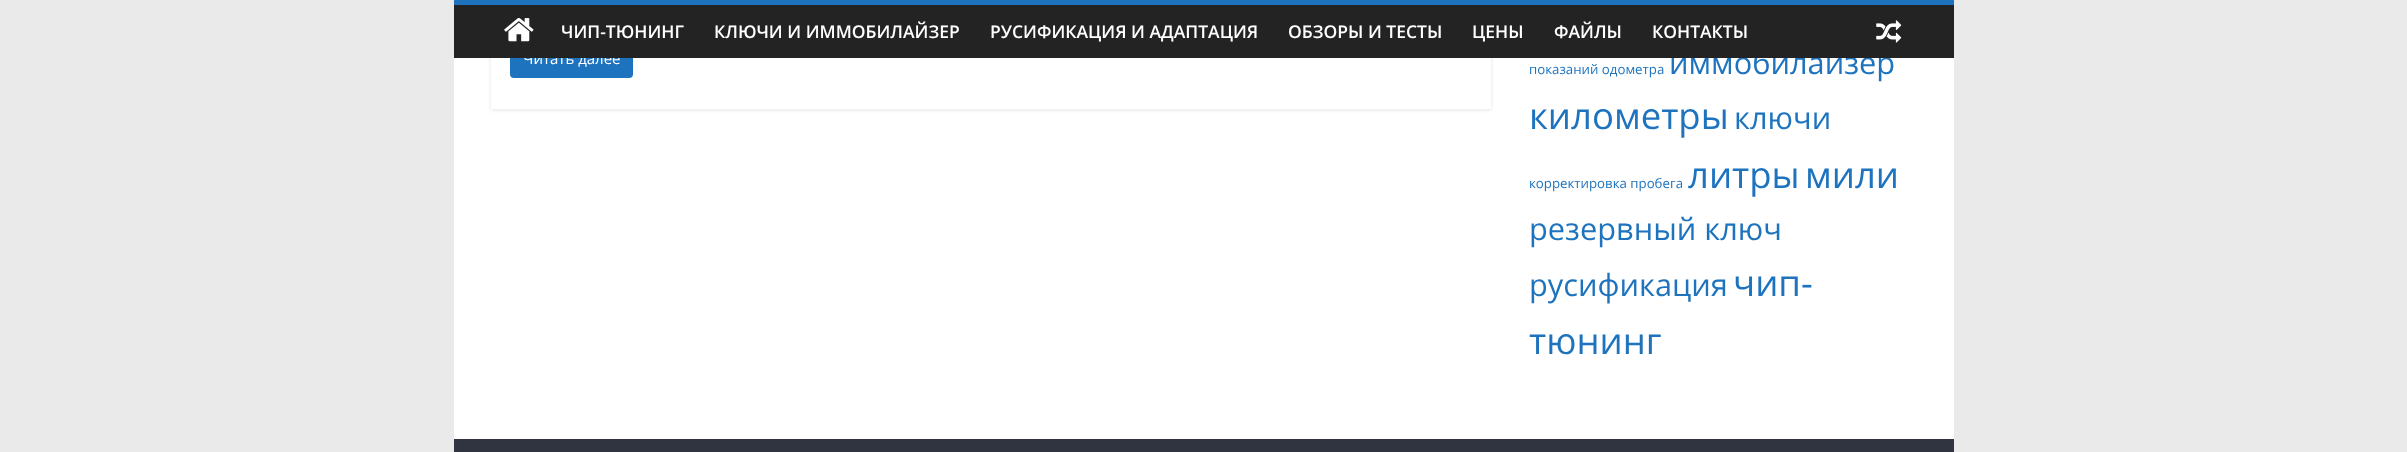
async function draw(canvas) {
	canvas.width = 2407;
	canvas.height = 452;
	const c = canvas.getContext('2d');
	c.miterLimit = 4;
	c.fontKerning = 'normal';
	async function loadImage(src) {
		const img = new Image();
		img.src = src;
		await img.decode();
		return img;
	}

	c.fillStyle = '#eaeaea';
	c.fillRect(0, 0, 2407, 452);
	c.fillStyle = '#fff';
	c.fillRect(454, 58, 1500, 381);
	c.save();
	c.beginPath();
	c.moveTo(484, 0);
	c.lineTo(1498, 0);
	c.lineTo(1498, 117);
	c.lineTo(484, 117);
	c.closePath();
	c.moveTo(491, -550);
	c.lineTo(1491, -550);
	c.lineTo(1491, 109);
	c.lineTo(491, 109);
	c.closePath();
	c.clip('evenodd');
	c.fillStyle = '#0000001a';
	c.filter = 'blur(2px)';
	c.beginPath();
	c.rect(491, -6, 1000, 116);
	c.fill();
	c.filter = 'none';
	c.restore();
	c.fillStyle = '#1e73be';
	c.beginPath();
	c.roundRect(510, 41, 123, 37, 4);
	c.fill();
	c.font = '15px Open Sans';
	c.fillStyle = '#fff';
	c.fillText('Читать далее', 523, 64);
	c.font = '30.75px Open Sans';
	c.fillStyle = '#1e73be';
	c.fillText('иммобилайзер', 1669, 74);
	c.fillStyle = '#232323';
	c.fillRect(454, 5, 1500, 53);
	c.fillStyle = '#1e73be';
	c.fillRect(454, 0, 1500, 5);
	c.drawImage(await loadImage('img1.png'), 504, 18, 30, 24);
	c.font = '600 17.5px Open Sans';
	c.fillStyle = '#fff';
	for (const [text, x, y] of [
		['ЧИП-ТЮНИНГ', 561, 38],
		['КЛЮЧИ И ИММОБИЛАЙЗЕР', 714, 38],
		['РУСИФИКАЦИЯ И АДАПТАЦИЯ', 990, 38],
		['ОБЗОРЫ И ТЕСТЫ', 1288, 38],
		['ЦЕНЫ', 1472, 38],
		['ФАЙЛЫ', 1554, 38],
		['КОНТАКТЫ', 1652, 38],
	]) {
		c.fillText(text, x, y);
	}
	c.drawImage(await loadImage('img2.png'), 1876, 20, 26, 23);
	c.font = '13.25px Open Sans';
	c.fillStyle = '#1e73be';
	c.fillText('показаний одометра', 1529, 74);
	c.font = '36.5px Open Sans';
	c.fillText('километры', 1529, 129);
	c.font = '30.75px Open Sans';
	c.fillText('ключи', 1734, 129);
	c.font = '13.25px Open Sans';
	c.fillText('корректировка пробега', 1529, 188);
	c.font = '36.5px Open Sans';
	c.fillText('литры', 1688, 188);
	c.fillText('мили', 1805, 188);
	c.font = '30.75px Open Sans';
	c.fillText('резервный ключ', 1529, 240);
	c.fillText('русификация', 1529, 296);
	c.font = '36.5px Open Sans';
	c.fillText('чип-', 1733, 296);
	c.fillText('тюнинг', 1529, 354);
	c.fillStyle = '#303440';
	c.fillRect(454, 439, 1500, 13);
}

draw(document.querySelector('canvas'));
